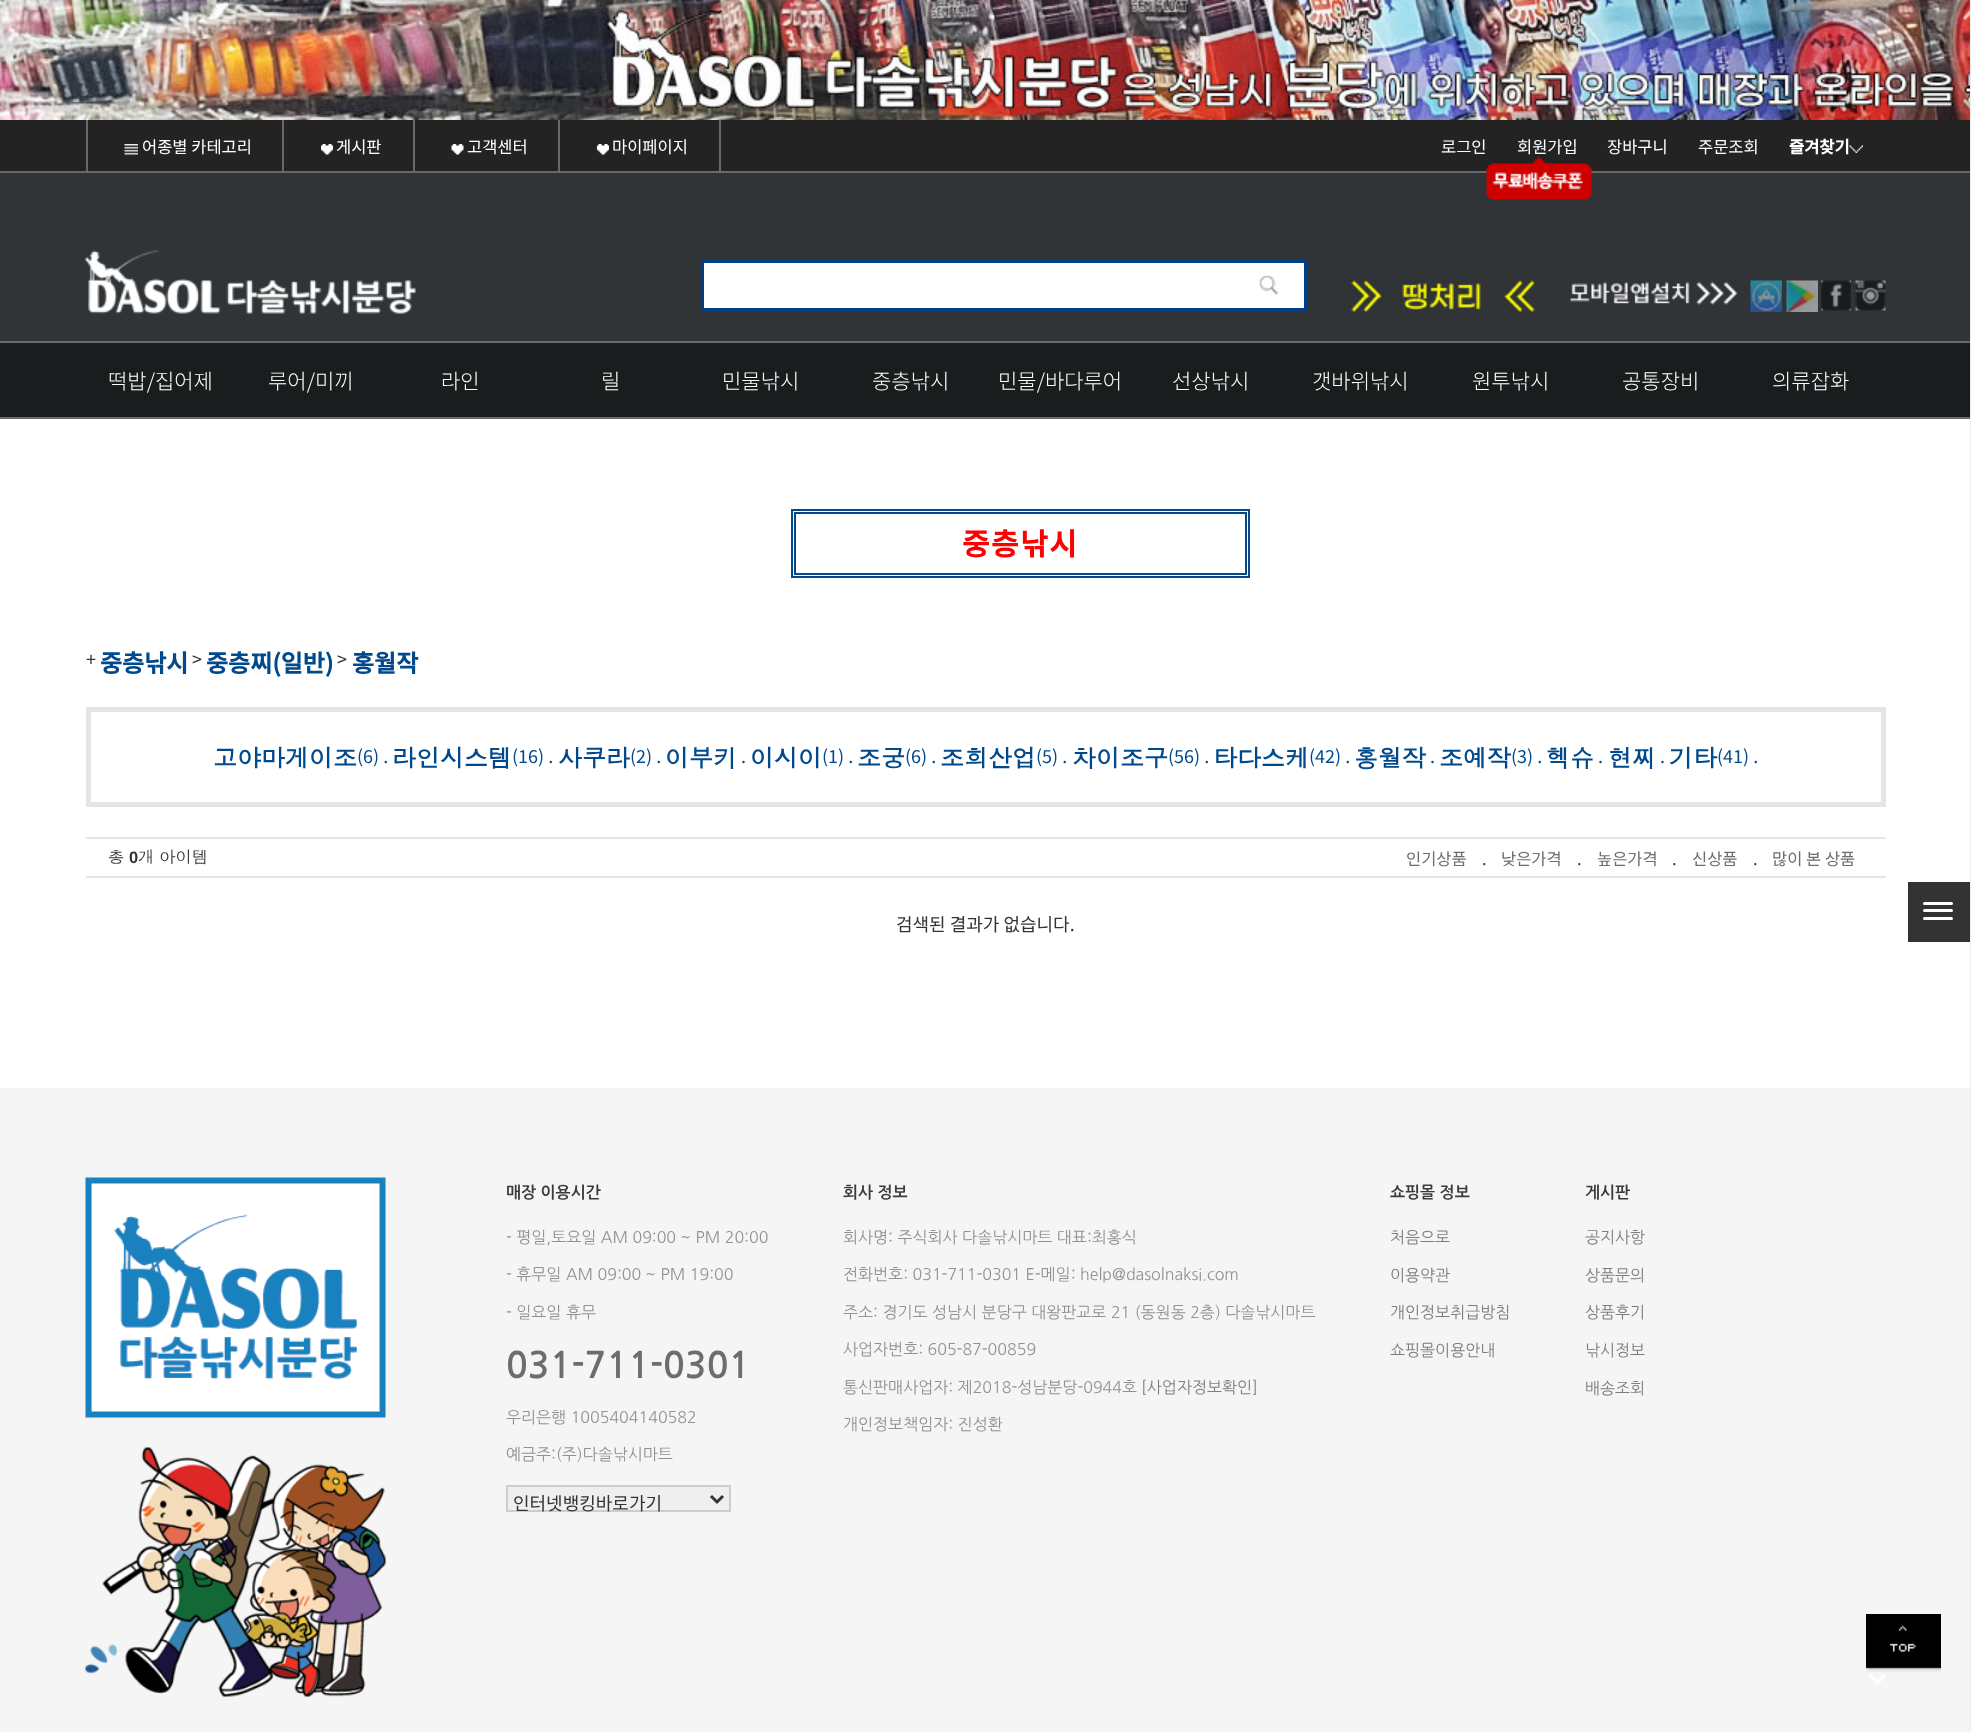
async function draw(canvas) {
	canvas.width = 1971;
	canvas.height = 1732;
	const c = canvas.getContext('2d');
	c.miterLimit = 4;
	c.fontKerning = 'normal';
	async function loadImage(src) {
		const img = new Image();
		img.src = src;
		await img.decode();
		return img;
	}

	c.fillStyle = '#fff';
	c.fillRect(0, 0, 1971, 1732);
	c.drawImage(await loadImage('img1.png'), 0, 0, 1970, 120);
	c.drawImage(await loadImage('img2.png'), 1963, 8, 7, 12);
	c.drawImage(await loadImage('img3.png'), 1963, 98, 7, 12);
	for (const [x, y, w, h, color] of [
		[0, 120, 1970, 51, '#232323'],
		[0, 171, 1971, 2, '#696969'],
		[282, 120, 2, 51, '#696969'],
		[86, 120, 2, 51, '#696969'],
	]) {
		c.fillStyle = color;
		c.fillRect(x, y, w, h);
	}
	c.drawImage(await loadImage('img4.png'), 124, 144, 14, 11);
	c.font = '16.5px Noto Sans KR';
	c.fillStyle = '#fff';
	c.fillText('어종별 카테고리', 142, 153);
	c.fillStyle = '#696969';
	c.fillRect(413, 120, 2, 51);
	c.drawImage(await loadImage('img5.png'), 321, 144, 12, 11);
	c.fillStyle = '#fff';
	c.fillText('게시판', 336, 153);
	c.fillStyle = '#696969';
	c.fillRect(558, 120, 2, 51);
	c.drawImage(await loadImage('img6.png'), 451, 144, 13, 11);
	c.fillStyle = '#fff';
	c.fillText('고객센터', 467, 153);
	c.fillStyle = '#696969';
	c.fillRect(719, 120, 2, 51);
	c.drawImage(await loadImage('img5.png'), 597, 144, 12, 11);
	c.fillStyle = '#fff';
	for (const [text, x, y] of [
		['마이페이지', 612, 153],
		['로그인', 1441, 153],
		['회원가입', 1517, 153],
	]) {
		c.fillText(text, x, y);
	}
	c.fillStyle = '#303437';
	c.fillRect(0, 173, 1970, 168);
	c.drawImage(await loadImage('img7.png'), 1486, 156, 106, 44);
	c.fillStyle = '#fff';
	c.fillText('장바구니', 1607, 153);
	c.fillText('주문조회', 1698, 153);
	c.font = 'bold 16.5px Noto Sans KR';
	c.fillText('즐겨찾기', 1789, 153);
	c.drawImage(await loadImage('img8.png'), 1849, 145, 14, 8);
	c.drawImage(await loadImage('img9.png'), 85, 250, 331, 64);
	c.beginPath();
	c.rect(702.5, 261.5, 603, 48);
	c.fill();
	c.strokeStyle = '#003f86';
	c.lineWidth = 3;
	c.stroke();
	c.drawImage(await loadImage('img10.png'), 1259, 275, 20, 20);
	c.drawImage(await loadImage('img11.png'), 1351, 280, 184, 32);
	c.drawImage(await loadImage('img12.png'), 1570, 281, 168, 24);
	c.drawImage(await loadImage('img13.png'), 1750, 280, 32, 32);
	c.drawImage(await loadImage('img14.png'), 1786, 280, 32, 32);
	c.drawImage(await loadImage('img15.png'), 1821, 280, 30, 31);
	c.drawImage(await loadImage('img16.png'), 1855, 280, 31, 31);
	for (const [x, y, w, h, color] of [
		[0, 343, 1970, 74, '#191d1e'],
		[0, 341, 1971, 2, '#696969'],
		[0, 417, 1971, 2, '#696969'],
	]) {
		c.fillStyle = color;
		c.fillRect(x, y, w, h);
	}
	c.font = '300 21px Noto Sans KR';
	c.fillStyle = '#fff';
	for (const [text, x, y] of [
		['떡밥/집어제', 108, 389],
		['루어/미끼', 268, 389],
		['라인', 441, 389],
		['릴', 601, 389],
		['민물낚시', 722, 389],
		['중층낚시', 872, 389],
		['민물/바다루어', 998, 389],
		['선상낚시', 1172, 389],
		['갯바위낚시', 1312, 389],
		['원투낚시', 1472, 389],
		['공통장비', 1622, 389],
		['의류잡화', 1772, 389],
	]) {
		c.fillText(text, x, y);
	}
	c.strokeStyle = '#00498d';
	c.lineWidth = 2;
	c.strokeRect(792, 510, 457, 67);
	c.strokeRect(795, 513, 451, 61);
	c.letterSpacing = '1.5px';
	c.font = 'bold 30px Noto Sans KR';
	c.fillStyle = '#f00';
	c.fillText('중층낚시', 962, 555);
	c.letterSpacing = '0px';
	c.font = '18px Noto Sans KR';
	c.fillStyle = '#333';
	c.fillText('+', 86, 666);
	c.font = 'bold 24px Noto Sans KR';
	c.fillStyle = '#00498d';
	c.fillText('중층낚시', 100, 672);
	c.font = '18px Noto Sans KR';
	c.fillStyle = '#333';
	c.fillText('>', 192, 666);
	c.font = 'bold 24px Noto Sans KR';
	c.fillStyle = '#00498d';
	c.fillText('중층찌(일반)', 206, 672);
	c.font = '18px Noto Sans KR';
	c.fillStyle = '#333';
	c.fillText('>', 337, 666);
	c.font = 'bold 24px Noto Sans KR';
	c.fillStyle = '#00498d';
	c.fillText('홍월작', 352, 672);
	c.strokeStyle = '#e5e5e5';
	c.lineWidth = 5;
	c.strokeRect(88.5, 709.5, 1795, 95);
	c.font = 'bold 24px Dotum';
	c.fillText('고야마게이조', 213, 767);
	c.font = '18px Noto Sans KR';
	c.fillText('(6) .', 357, 763);
	c.font = 'bold 24px Dotum';
	c.fillText('라인시스템', 392, 767);
	c.font = '18px Noto Sans KR';
	c.fillText('(16) .', 512, 763);
	c.font = 'bold 24px Dotum';
	c.fillText('사쿠라', 558, 767);
	c.font = '18px Noto Sans KR';
	c.fillText('(2) .', 630, 763);
	c.font = 'bold 24px Dotum';
	c.fillText('이부키', 665, 767);
	c.font = '18px Noto Sans KR';
	c.fillText('.', 741, 763);
	c.font = 'bold 24px Dotum';
	c.fillText('이시이', 750, 767);
	c.font = '18px Noto Sans KR';
	c.fillText('(1) .', 822, 763);
	c.font = 'bold 24px Dotum';
	c.fillText('조궁', 857, 767);
	c.font = '18px Noto Sans KR';
	c.fillText('(6) .', 905, 763);
	c.font = 'bold 24px Dotum';
	c.fillText('조희산업', 940, 767);
	c.font = '18px Noto Sans KR';
	c.fillText('(5) .', 1036, 763);
	c.font = 'bold 24px Dotum';
	c.fillText('차이조구', 1072, 767);
	c.font = '18px Noto Sans KR';
	c.fillText('(56) .', 1168, 763);
	c.font = 'bold 24px Dotum';
	c.fillText('타다스케', 1213, 767);
	c.font = '18px Noto Sans KR';
	c.fillText('(42) .', 1309, 763);
	c.font = 'bold 24px Dotum';
	c.fillText('홍월작', 1354, 767);
	c.font = '18px Noto Sans KR';
	c.fillText('.', 1430, 763);
	c.font = 'bold 24px Dotum';
	c.fillText('조예작', 1439, 767);
	c.font = '18px Noto Sans KR';
	c.fillText('(3) .', 1511, 763);
	c.font = 'bold 24px Dotum';
	c.fillText('헥슈', 1546, 767);
	c.font = '18px Noto Sans KR';
	c.fillText('.', 1598, 763);
	c.font = 'bold 24px Dotum';
	c.fillText('현찌', 1608, 767);
	c.font = '18px Noto Sans KR';
	c.fillText('.', 1660, 763);
	c.font = 'bold 24px Dotum';
	c.fillText('기타', 1669, 767);
	c.font = '18px Noto Sans KR';
	c.fillText('(41) .', 1717, 763);
	c.fillStyle = '#e5e5e5';
	c.fillRect(86, 837, 1800, 2);
	c.fillRect(86, 876, 1800, 2);
	c.font = '16.5px Dotum';
	c.fillStyle = '#333';
	c.fillText('총', 108, 863);
	c.font = 'bold 16.5px Liberation Sans';
	c.fillText('0', 129, 863);
	c.wordSpacing = '-1px';
	c.font = '16.5px Dotum';
	c.fillText('개 아이템', 138, 863);
	c.wordSpacing = '0px';
	c.font = '16.5px Noto Sans KR';
	c.fillStyle = '#6d6d6d';
	c.fillText('인기상품', 1406, 865);
	c.fillStyle = '#333';
	c.fillText('.', 1482, 865);
	c.fillStyle = '#6d6d6d';
	c.fillText('낮은가격', 1501, 865);
	c.fillStyle = '#333';
	c.fillText('.', 1577, 865);
	c.fillStyle = '#6d6d6d';
	c.fillText('높은가격', 1597, 865);
	c.fillStyle = '#333';
	c.fillText('.', 1672, 865);
	c.fillStyle = '#6d6d6d';
	c.fillText('신상품', 1692, 865);
	c.fillStyle = '#333';
	c.fillText('.', 1753, 865);
	c.fillStyle = '#6d6d6d';
	c.fillText('많이 본 상품', 1772, 865);
	c.font = '18px Noto Sans KR';
	c.fillStyle = '#333';
	c.fillText('검색된 결과가 없습니다.', 896, 931);
	c.fillStyle = '#f5f5f5';
	c.fillRect(0, 1088, 1970, 644);
	c.drawImage(await loadImage('img17.png'), 1866, 1614, 75, 58);
	c.drawImage(await loadImage('img18.png'), 1869, 1674, 17, 11);
	c.fillStyle = '#eee';
	c.fillRect(1970, 0, 1, 1732);
	c.fillStyle = '#333';
	c.fillRect(1908, 882, 62, 60);
	c.fillStyle = '#fff';
	c.beginPath();
	c.roundRect(1923, 909, 30, 3, 1.5);
	c.fill();
	c.beginPath();
	c.roundRect(1923, 902, 30, 3, 1.5);
	c.fill();
	c.beginPath();
	c.roundRect(1923, 917, 30, 3, 1.5);
	c.fill();
	c.drawImage(await loadImage('img19.png'), 85, 1177, 301, 241);
	c.drawImage(await loadImage('img20.png'), 85, 1447, 301, 250);
	c.font = 'bold 16px NanumGothic';
	c.fillStyle = '#3c3c3c';
	c.fillText('매장 이용시간', 506, 1198);
	c.font = '16px NanumGothic';
	c.fillStyle = '#919191';
	for (const [text, x, y] of [
		['- 평일,토요일 AM 09:00 ~ PM 20:00', 506, 1243],
		['- 휴무일 AM 09:00 ~ PM 19:00', 506, 1280],
		['- 일요일 휴무', 506, 1318],
	]) {
		c.fillText(text, x, y);
	}
	c.font = 'bold 36px NanumGothic';
	c.fillStyle = '#6d6d6d';
	c.fillText('031-711-0301', 506, 1378);
	c.font = '16px NanumGothic';
	c.fillStyle = '#919191';
	c.fillText('우리은행 1005404140582', 506, 1423);
	c.fillText('예금주:(주)다솔낚시마트', 506, 1460);
	c.fillStyle = '#efefef';
	c.beginPath();
	c.rect(507, 1486, 223, 25);
	c.fill();
	c.strokeStyle = '#cdcdcd';
	c.lineWidth = 2;
	c.stroke();
	c.beginPath();
	c.moveTo(711, 1496);
	c.lineTo(717, 1502);
	c.lineTo(723, 1496);
	c.strokeStyle = '#333';
	c.lineWidth = 3;
	c.stroke();
	c.font = '18px Noto Sans KR';
	c.fillStyle = '#333';
	c.fillText('인터넷뱅킹바로가기', 513, 1510);
	c.font = 'bold 16px NanumGothic';
	c.fillStyle = '#3c3c3c';
	c.fillText('회사 정보', 843, 1198);
	c.font = '16px NanumGothic';
	c.fillStyle = '#919191';
	for (const [text, x, y] of [
		['회사명: 주식회사 다솔낚시마트 대표:최홍식', 843, 1243],
		['전화번호: 031-711-0301 E-메일: help@dasolnaksi.com', 843, 1280],
		['주소: 경기도 성남시 분당구 대왕판교로 21 (동원동 2층) 다솔낚시마트', 843, 1318],
		['사업자번호: 605-87-00859', 843, 1355],
		['통신판매사업자: 제2018-성남분당-0944호', 843, 1393],
	]) {
		c.fillText(text, x, y);
	}
	c.fillStyle = '#7d7d7d';
	c.fillText('[사업자정보확인]', 1141, 1393);
	c.fillStyle = '#919191';
	c.fillText('개인정보책임자: 진성환', 843, 1430);
	c.font = 'bold 16px NanumGothic';
	c.fillStyle = '#3c3c3c';
	c.fillText('쇼핑몰 정보', 1390, 1198);
	c.font = '16px NanumGothic';
	c.fillStyle = '#7d7d7d';
	for (const [text, x, y] of [
		['처음으로', 1390, 1243],
		['이용약관', 1390, 1281],
		['개인정보취급방침', 1390, 1318],
		['쇼핑몰이용안내', 1390, 1356],
	]) {
		c.fillText(text, x, y);
	}
	c.font = 'bold 16px NanumGothic';
	c.fillStyle = '#3c3c3c';
	c.fillText('게시판', 1585, 1198);
	c.font = '16px NanumGothic';
	c.fillStyle = '#7d7d7d';
	for (const [text, x, y] of [
		['공지사항', 1585, 1243],
		['상품문의', 1585, 1281],
		['상품후기', 1585, 1318],
		['낚시정보', 1585, 1356],
		['배송조회', 1585, 1394],
	]) {
		c.fillText(text, x, y);
	}
}

draw(document.querySelector('canvas'));
